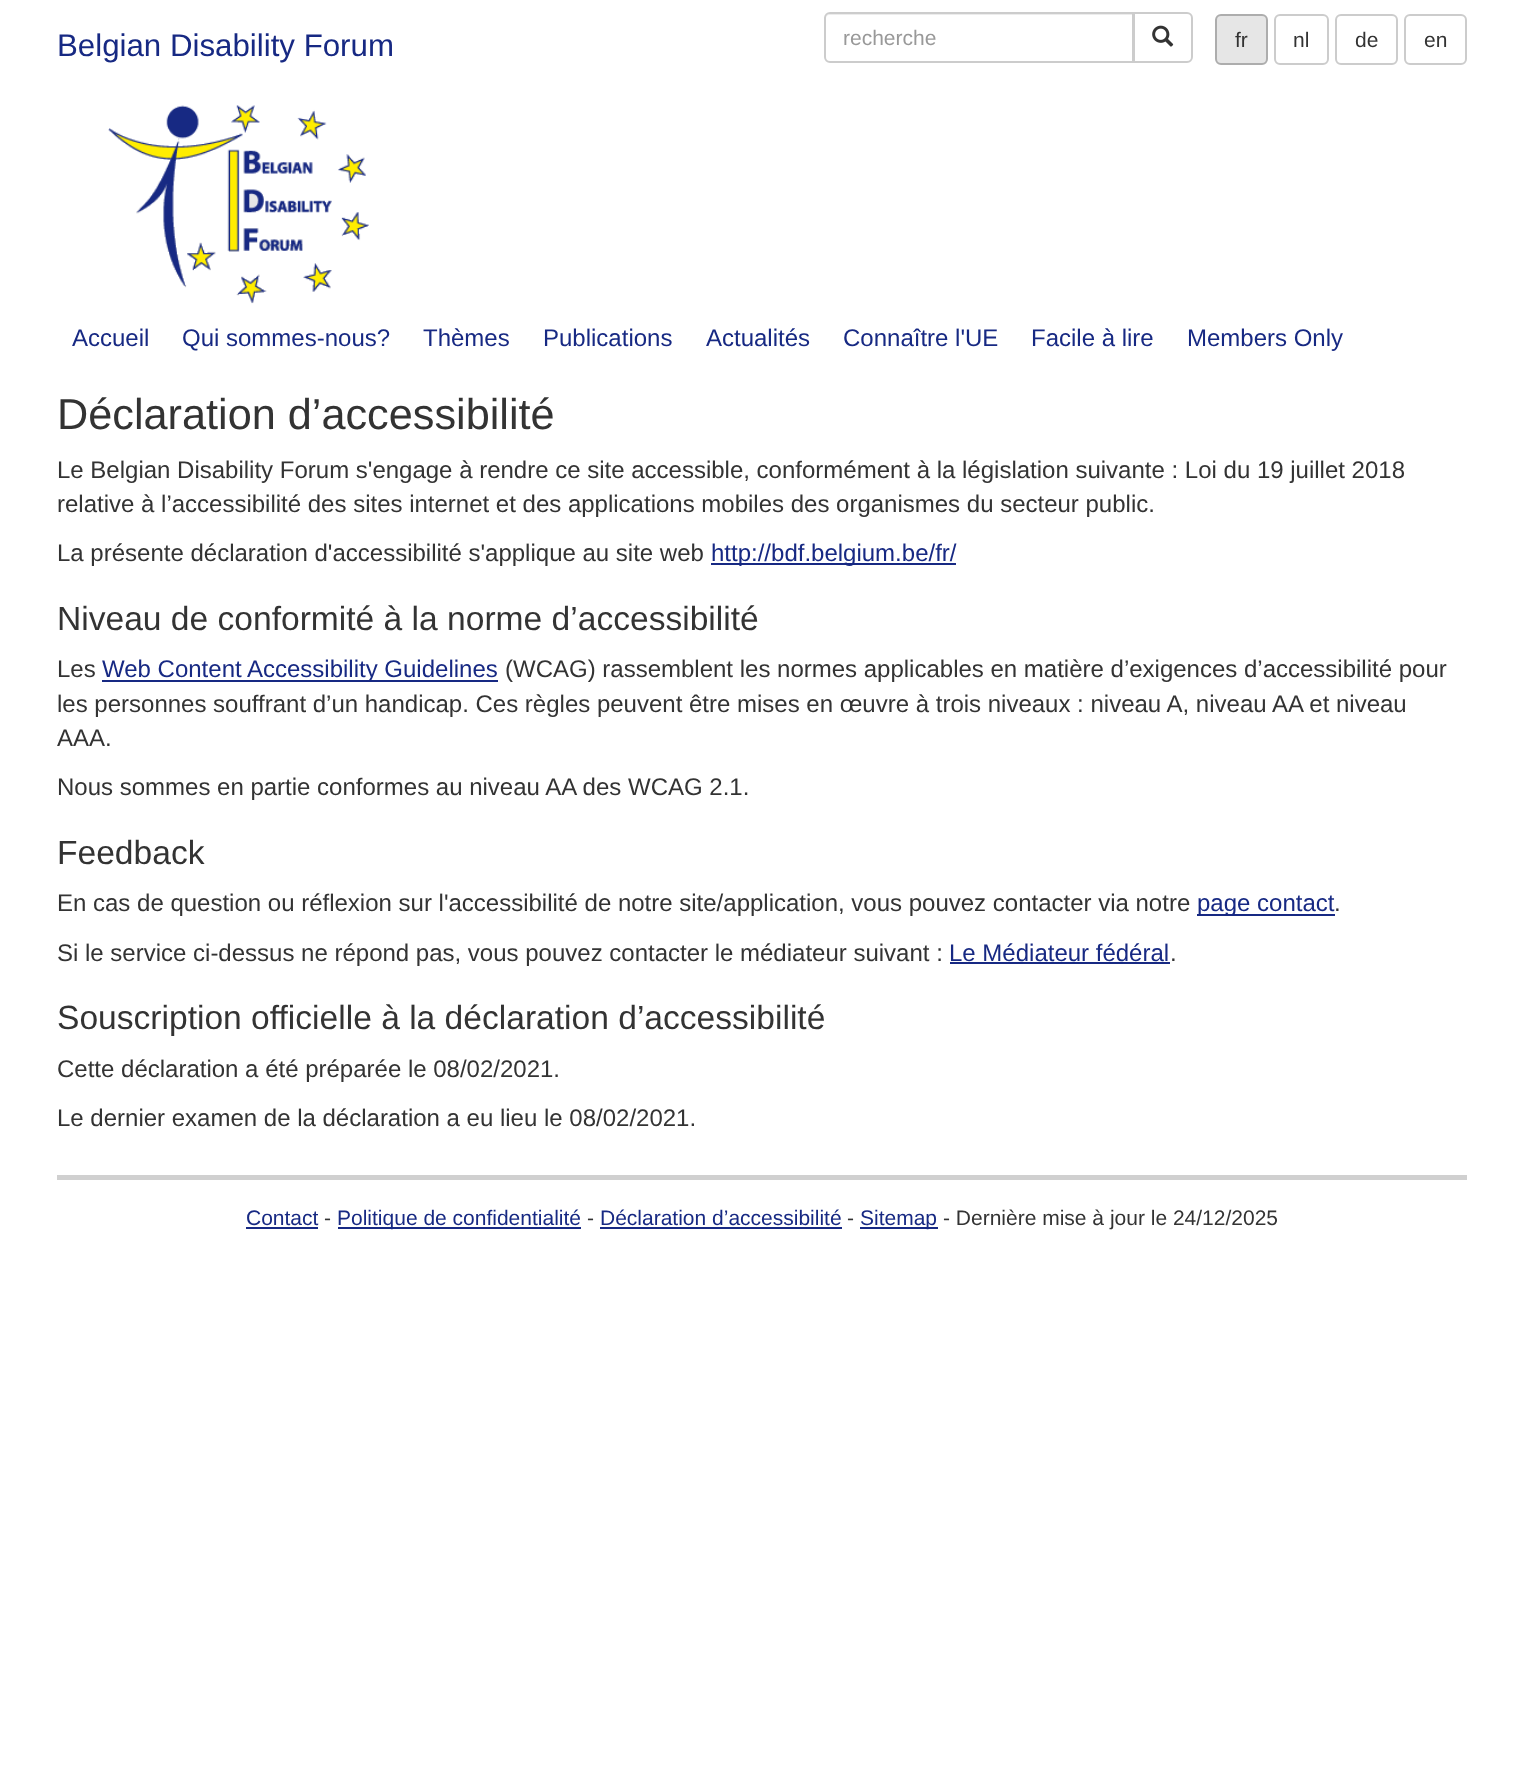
async function draw(canvas) {
	canvas.width = 1523;
	canvas.height = 1792;
	const c = canvas.getContext('2d');
	c.miterLimit = 4;
	c.fontKerning = 'normal';
	async function loadImage(src) {
		const img = new Image();
		img.src = src;
		await img.decode();
		return img;
	}

	c.fillStyle = '#fff';
	c.fillRect(0, 0, 1523, 1792);
	c.font = '31.25px Liberation Sans';
	c.fillStyle = '#172983';
	c.fillText('Belgian Disability Forum', 57, 56);
	c.fillStyle = '#ececec';
	c.beginPath();
	c.moveTo(830, 15);
	c.lineTo(1132, 15);
	c.lineTo(1132, 62);
	c.lineTo(1133, 62);
	c.lineTo(1133, 14);
	c.lineTo(830, 14);
	c.bezierCurveTo(827, 14, 825, 17, 825, 20);
	c.bezierCurveTo(825, 17, 827, 15, 830, 15);
	c.closePath();
	c.fill();
	c.beginPath();
	c.roundRect(825, 13, 308, 49, [5, 0, 0, 5]);
	c.strokeStyle = '#ccc';
	c.lineWidth = 2;
	c.stroke();
	c.font = '21px Liberation Sans';
	c.fillStyle = '#999';
	c.fillText('recherche', 843, 45);
	c.fillStyle = '#fff';
	c.beginPath();
	c.roundRect(1134, 13, 58, 49, [0, 5, 5, 0]);
	c.fill();
	c.stroke();
	c.drawImage(await loadImage('img1.png'), 1152, 25, 22, 22);
	c.fillStyle = '#e6e6e6';
	c.beginPath();
	c.roundRect(1216, 15, 51, 49, 5);
	c.fill();
	c.strokeStyle = '#adadad';
	c.stroke();
	c.fillStyle = '#333';
	c.fillText('fr', 1235, 47);
	c.beginPath();
	c.roundRect(1275, 15, 53, 49, 5);
	c.strokeStyle = '#ccc';
	c.stroke();
	c.fillText('nl', 1293, 47);
	c.beginPath();
	c.roundRect(1336, 15, 61, 49, 5);
	c.stroke();
	c.fillText('de', 1355, 47);
	c.beginPath();
	c.roundRect(1405, 15, 61, 49, 5);
	c.stroke();
	c.fillText('en', 1424, 47);
	c.drawImage(await loadImage('img2.png'), 108, 105, 261, 199);
	c.font = '24px Liberation Sans';
	c.fillStyle = '#172983';
	for (const [text, x, y] of [
		['Accueil', 72, 346],
		['Qui sommes-nous?', 182, 346],
		['Thèmes', 423, 346],
		['Publications', 543, 346],
		['Actualités', 706, 346],
		['Connaître l\'UE', 843, 346],
		['Facile à lire', 1031, 346],
		['Members Only', 1187, 346],
	]) {
		c.fillText(text, x, y);
	}
	c.font = '43.25px Liberation Sans';
	c.fillStyle = '#333';
	c.fillText('Déclaration d’accessibilité', 57, 429);
	c.font = '24px Liberation Sans';
	for (const [text, x, y] of [
		['Le Belgian Disability Forum s\'engage à rendre ce site accessible, conformément à la législation suivante : Loi du 19 juillet 2018', 57, 478],
		['relative à l’accessibilité des sites internet et des applications mobiles des organismes du secteur public.', 57, 512],
		['La présente déclaration d\'accessibilité s\'applique au site web', 57, 561],
	]) {
		c.fillText(text, x, y);
	}
	c.fillStyle = '#172983';
	c.fillRect(711, 563, 245, 2);
	c.fillText('http://bdf.belgium.be/fr/', 711, 561);
	c.font = '33.6px Liberation Sans';
	c.fillStyle = '#333';
	c.fillText('Niveau de conformité à la norme d’accessibilité', 57, 630);
	c.font = '24px Liberation Sans';
	c.fillText('Les', 57, 677);
	c.fillStyle = '#172983';
	c.fillRect(102, 680, 396, 2);
	c.fillText('Web Content Accessibility Guidelines', 102, 677);
	c.fillStyle = '#333';
	for (const [text, x, y] of [
		['(WCAG) rassemblent les normes applicables en matière d’exigences d’accessibilité pour', 505, 677],
		['les personnes souffrant d’un handicap. Ces règles peuvent être mises en œuvre à trois niveaux : niveau A, niveau AA et niveau', 57, 712],
		['AAA.', 57, 746],
		['Nous sommes en partie conformes au niveau AA des WCAG 2.1.', 57, 795],
	]) {
		c.fillText(text, x, y);
	}
	c.font = '33.6px Liberation Sans';
	c.fillText('Feedback', 57, 864);
	c.font = '24px Liberation Sans';
	c.fillText('En cas de question ou réflexion sur l\'accessibilité de notre site/application, vous pouvez contacter via notre', 57, 911);
	c.fillStyle = '#172983';
	c.fillRect(1197, 914, 138, 2);
	c.fillText('page contact', 1197, 911);
	c.fillStyle = '#333';
	c.fillText('.', 1334, 911);
	c.fillText('Si le service ci-dessus ne répond pas, vous pouvez contacter le médiateur suivant :', 57, 961);
	c.fillStyle = '#172983';
	c.fillText('Le Médiateur fédéral', 949, 961);
	c.fillRect(950, 962, 220, 2);
	c.fillStyle = '#333';
	c.fillText('.', 1170, 961);
	c.font = '33.6px Liberation Sans';
	c.fillText('Souscription officielle à la déclaration d’accessibilité', 57, 1029);
	c.font = '24px Liberation Sans';
	c.fillText('Cette déclaration a été préparée le 08/02/2021.', 57, 1077);
	c.fillText('Le dernier examen de la déclaration a eu lieu le 08/02/2021.', 57, 1126);
	c.fillStyle = '#d0d0d0';
	c.fillRect(57, 1175, 1410, 5);
	c.font = '21px Liberation Sans';
	c.fillStyle = '#172983';
	c.fillText('Contact', 246, 1225);
	c.fillRect(246, 1227, 72, 2);
	c.fillStyle = '#333';
	c.fillText('-', 324, 1225);
	c.fillStyle = '#172983';
	c.fillRect(338, 1227, 243, 2);
	c.fillText('Politique de confidentialité', 337, 1225);
	c.fillStyle = '#333';
	c.fillText('-', 587, 1225);
	c.fillStyle = '#172983';
	c.fillText('Déclaration d’accessibilité', 600, 1225);
	c.fillRect(600, 1227, 242, 2);
	c.fillStyle = '#333';
	c.fillText('-', 847, 1225);
	c.fillStyle = '#172983';
	c.fillRect(860, 1227, 78, 2);
	c.fillText('Sitemap', 860, 1225);
	c.fillStyle = '#333';
	c.fillText('- Dernière mise à jour le 24/12/2025', 943, 1225);
}

draw(document.querySelector('canvas'));
